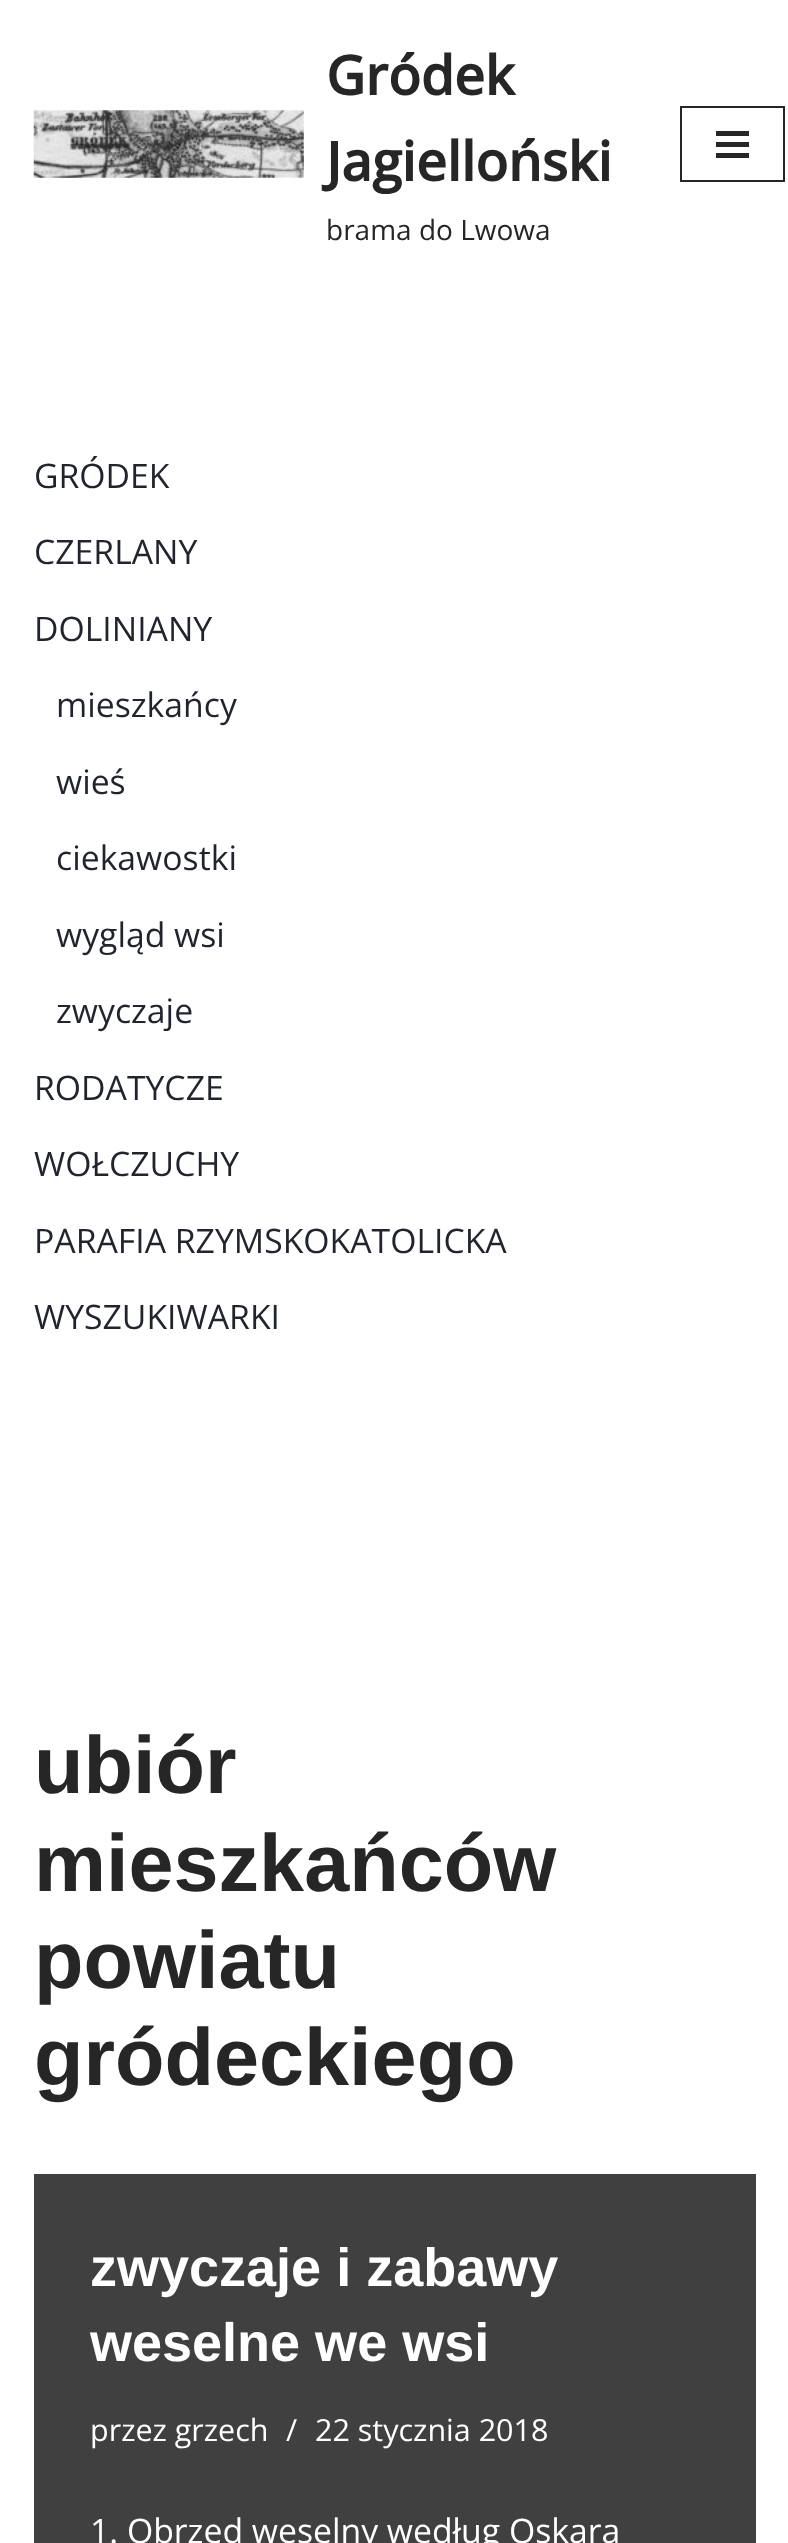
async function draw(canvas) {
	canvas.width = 788;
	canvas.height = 2543;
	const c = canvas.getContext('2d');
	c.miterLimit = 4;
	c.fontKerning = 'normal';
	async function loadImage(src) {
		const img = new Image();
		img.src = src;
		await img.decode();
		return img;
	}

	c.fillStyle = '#fff';
	c.fillRect(0, 0, 788, 2543);
	c.drawImage(await loadImage('img1.png'), 33, 110, 271, 68);
	c.font = 'bold 54px Open Sans';
	c.fillStyle = '#272626';
	c.fillText('Gródek', 326, 95);
	c.fillText('Jagielloński', 326, 181);
	c.font = '28px Open Sans';
	c.fillText('brama do Lwowa', 326, 240);
	c.strokeStyle = '#272626';
	c.lineWidth = 2;
	c.strokeRect(681, 107, 103, 74);
	for (const [x, y, w, h, color] of [
		[716, 131, 33, 5, '#272626'],
		[716, 142, 33, 5, '#272626'],
		[716, 153, 33, 5, '#272626'],
	]) {
		c.fillStyle = color;
		c.fillRect(x, y, w, h);
	}
	c.font = '33.75px Open Sans';
	c.fillStyle = '#1f242e';
	for (const [text, x, y] of [
		['GRÓDEK', 34, 488],
		['CZERLANY', 34, 564],
		['DOLINIANY', 34, 641],
		['mieszkańcy', 56, 717],
		['wieś', 56, 794],
		['ciekawostki', 56, 870],
		['wygląd wsi', 56, 947],
		['zwyczaje', 56, 1023],
		['RODATYCZE', 34, 1100],
		['WOŁCZUCHY', 34, 1176],
		['PARAFIA RZYMSKOKATOLICKA', 34, 1253],
		['WYSZUKIWARKI', 34, 1329],
	]) {
		c.fillText(text, x, y);
	}
	c.font = 'bold 81px Liberation Sans';
	c.fillStyle = '#272626';
	for (const [text, x, y] of [
		['ubiór', 34, 1793],
		['mieszkańców', 34, 1891],
		['powiatu', 34, 1988],
		['gródeckiego', 34, 2085],
	]) {
		c.fillText(text, x, y);
	}
	c.fillStyle = '#404040';
	c.fillRect(34, 2174, 722, 369);
	c.font = 'bold 54px Liberation Sans';
	c.fillStyle = '#fff';
	c.fillText('zwyczaje i zabawy', 90, 2286);
	c.fillText('weselne we wsi', 90, 2361);
	c.font = '30.5px Open Sans';
	for (const [text, x, y] of [
		['przez grzech', 90, 2441],
		['/', 286, 2441],
		['22 stycznia 2018', 315, 2441],
	]) {
		c.fillText(text, x, y);
	}
	c.font = '33.75px Open Sans';
	c.fillText('1. Obrzęd weselny według Oskara', 90, 2543);
}

draw(document.querySelector('canvas'));
